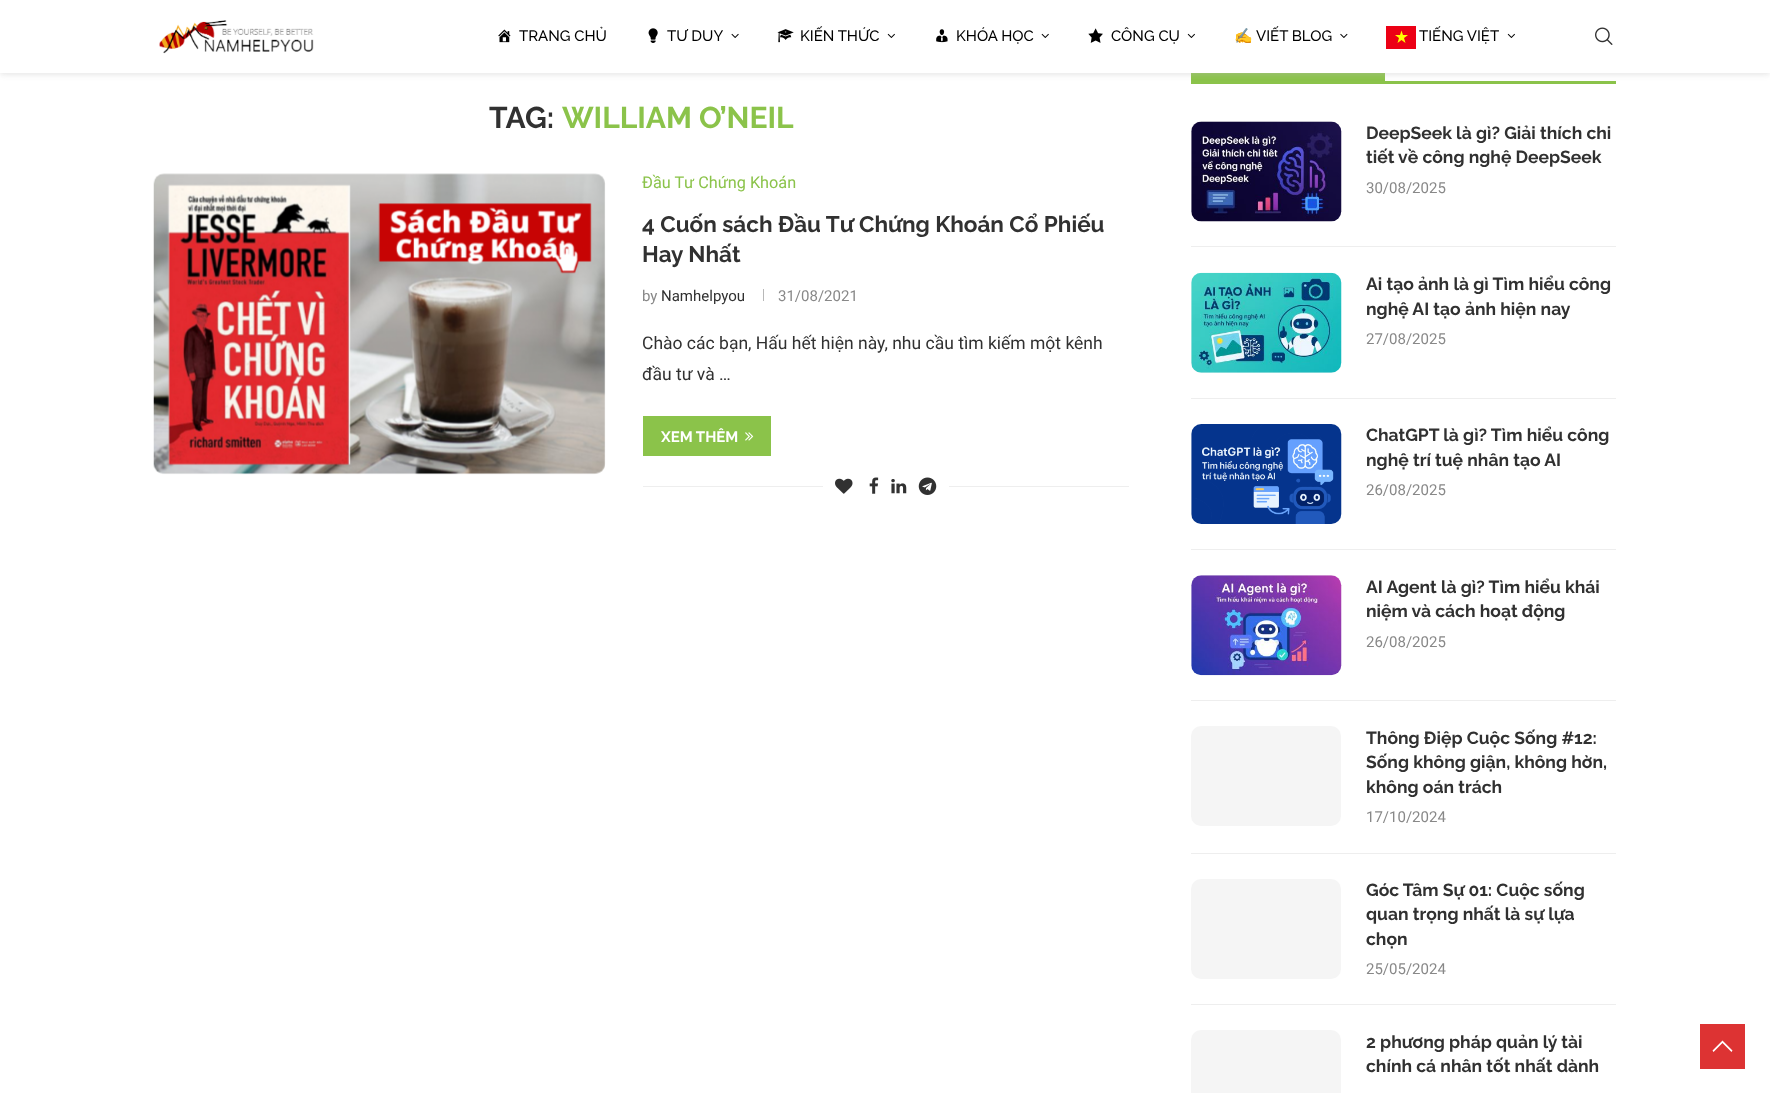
async function draw(canvas) {
	canvas.width = 1770;
	canvas.height = 1093;
	const c = canvas.getContext('2d');
	c.miterLimit = 4;
	c.fontKerning = 'normal';
	async function loadImage(src) {
		const img = new Image();
		img.src = src;
		await img.decode();
		return img;
	}

	c.fillStyle = '#fff';
	c.fillRect(0, 0, 1770, 1093);
	for (const [x, y, w, h, color] of [
		[1191, 81, 425, 3, '#8bc34a'],
		[1194, 73, 190, 8, '#8bc34a'],
		[1384, 73, 1, 11, '#8bc34a'],
		[1191, 73, 3, 11, '#8bc34a'],
	]) {
		c.fillStyle = color;
		c.fillRect(x, y, w, h);
	}
	c.fillStyle = '#bebebe75';
	c.filter = 'blur(3px)';
	c.beginPath();
	c.rect(0, 1, 1770, 73);
	c.fill();
	c.filter = 'none';
	c.fillStyle = '#fff';
	c.fillRect(0, 0, 1770, 73);
	c.drawImage(await loadImage('img1.png'), 159, 20, 155, 34);
	c.drawImage(await loadImage('img2.png'), 498, 29, 13, 14);
	c.font = '500 15px Raleway';
	c.fillStyle = '#000';
	c.fillText('TRANG CHỦ', 519, 41);
	c.drawImage(await loadImage('img3.png'), 648, 28, 10, 15);
	c.fillText('TƯ DUY', 667, 41);
	c.drawImage(await loadImage('img4.png'), 731, 33, 8, 5);
	c.drawImage(await loadImage('img5.png'), 777, 29, 17, 14);
	c.fillText('KIẾN THỨC', 800, 41);
	c.drawImage(await loadImage('img6.png'), 887, 33, 8, 5);
	c.drawImage(await loadImage('img7.png'), 936, 29, 12, 14);
	c.fillText('KHÓA HỌC', 956, 41);
	c.drawImage(await loadImage('img8.png'), 1041, 33, 8, 5);
	c.drawImage(await loadImage('img9.png'), 1088, 28, 15, 15);
	c.fillText('CÔNG CỤ', 1111, 41);
	c.drawImage(await loadImage('img10.png'), 1187, 33, 8, 5);
	c.font = '15px Noto Color Emoji';
	c.fillText('✍️', 1234, 41);
	c.font = '500 15px Raleway';
	c.fillText('VIẾT BLOG', 1256, 41);
	c.drawImage(await loadImage('img11.png'), 1340, 33, 8, 5);
	c.fillStyle = '#ec0015';
	c.fillRect(1386, 26, 30, 23);
	c.fillStyle = '#000';
	c.fillText('TIẾNG VIỆT', 1419, 41);
	c.fillStyle = '#ff0';
	c.beginPath();
	c.moveTo(1405.5, 43);
	c.lineTo(1401.5, 40);
	c.lineTo(1397.5, 43);
	c.lineTo(1399, 38);
	c.lineTo(1395, 35);
	c.lineTo(1400, 35);
	c.lineTo(1401.5, 30.5);
	c.lineTo(1403, 35);
	c.lineTo(1408, 35);
	c.lineTo(1404, 38);
	c.closePath();
	c.fill('evenodd');
	c.drawImage(await loadImage('img10.png'), 1507, 33, 8, 5);
	c.drawImage(await loadImage('img12.png'), 1595, 27, 18, 18);
	c.font = 'bold 30px Raleway';
	c.fillStyle = '#313131';
	c.fillText('TAG:', 489, 128);
	c.fillStyle = '#8bc34a';
	c.fillText('WILLIAM O’NEIL', 562, 128);
	c.fillStyle = '#f5f5f5';
	c.beginPath();
	c.roundRect(154, 174, 451, 300, 10);
	c.fill();
	c.drawImage(await loadImage('img13.png'), 153, 173, 453, 302);
	c.font = '16.25px Roboto';
	c.fillStyle = '#8bc34a';
	c.fillText('Đầu Tư Chứng Khoán', 642, 188);
	c.font = 'bold 22.5px Raleway';
	c.fillStyle = '#313131';
	c.fillText('4 Cuốn sách Đầu Tư Chứng Khoán Cổ Phiếu', 642, 232);
	c.fillText('Hay Nhất', 642, 262);
	c.font = '15px Roboto';
	c.fillStyle = '#888';
	c.fillText('by', 642, 301);
	c.fillStyle = '#313131';
	c.fillText('Namhelpyou', 661, 301);
	c.fillStyle = '#b8b8b8';
	c.fillRect(763, 289, 1, 12);
	c.fillStyle = '#888';
	c.fillText('31/08/2021', 778, 301);
	c.font = '17.5px Roboto';
	c.fillStyle = '#313131';
	c.fillText('Chào các bạn, Hấu hết hiện này, nhu cầu tìm kiếm một kênh', 642, 349);
	c.fillText('đầu tư và …', 642, 380);
	c.fillStyle = '#8bc34a';
	c.fillRect(643, 416, 128, 40);
	c.font = 'bold 15px Raleway';
	c.fillStyle = '#fff';
	c.fillText('XEM THÊM', 661, 442);
	c.drawImage(await loadImage('img14.png'), 745, 432, 9, 9);
	c.fillStyle = '#eee';
	c.fillRect(643, 486, 486, 1);
	c.fillStyle = '#fff';
	c.fillRect(823, 486, 126, 1);
	c.drawImage(await loadImage('img15.png'), 835, 478, 18, 16);
	c.drawImage(await loadImage('img16.png'), 869, 477, 10, 17);
	c.drawImage(await loadImage('img17.png'), 891, 479, 16, 15);
	c.drawImage(await loadImage('img18.png'), 918, 477, 19, 18);
	c.fillStyle = '#eee';
	c.fillRect(1191, 246, 425, 1);
	c.fillStyle = '#f5f5f5';
	c.beginPath();
	c.roundRect(1191, 121, 150, 100, 10);
	c.fill();
	c.drawImage(await loadImage('img19.png'), 1191, 121, 151, 101);
	c.font = 'bold 17.5px Raleway';
	c.fillStyle = '#313131';
	c.fillText('DeepSeek là gì? Giải thích chi', 1366, 139);
	c.fillText('tiết về công nghệ DeepSeek', 1366, 163);
	c.font = '15px Roboto';
	c.fillStyle = '#888';
	c.fillText('30/08/2025', 1366, 193);
	c.fillStyle = '#eee';
	c.fillRect(1191, 398, 425, 1);
	c.fillStyle = '#f5f5f5';
	c.beginPath();
	c.roundRect(1191, 273, 150, 100, 10);
	c.fill();
	c.drawImage(await loadImage('img20.png'), 1191, 272, 151, 101);
	c.font = 'bold 17.5px Raleway';
	c.fillStyle = '#313131';
	c.fillText('Ai tạo ảnh là gì Tìm hiểu công', 1366, 290);
	c.fillText('nghệ AI tạo ảnh hiện nay', 1366, 315);
	c.font = '15px Roboto';
	c.fillStyle = '#888';
	c.fillText('27/08/2025', 1366, 344);
	c.fillStyle = '#eee';
	c.fillRect(1191, 549, 425, 1);
	c.fillStyle = '#f5f5f5';
	c.beginPath();
	c.roundRect(1191, 424, 150, 100, 10);
	c.fill();
	c.drawImage(await loadImage('img21.png'), 1191, 424, 151, 100);
	c.font = 'bold 17.5px Raleway';
	c.fillStyle = '#313131';
	c.fillText('ChatGPT là gì? Tìm hiểu công', 1366, 441);
	c.fillText('nghệ trí tuệ nhân tạo AI', 1366, 466);
	c.font = '15px Roboto';
	c.fillStyle = '#888';
	c.fillText('26/08/2025', 1366, 495);
	c.fillStyle = '#eee';
	c.fillRect(1191, 700, 425, 1);
	c.fillStyle = '#f5f5f5';
	c.beginPath();
	c.roundRect(1191, 575, 150, 100, 10);
	c.fill();
	c.drawImage(await loadImage('img22.png'), 1191, 575, 151, 101);
	c.font = 'bold 17.5px Raleway';
	c.fillStyle = '#313131';
	c.fillText('AI Agent là gì? Tìm hiểu khái', 1366, 593);
	c.fillText('niệm và cách hoạt động', 1366, 617);
	c.font = '15px Roboto';
	c.fillStyle = '#888';
	c.fillText('26/08/2025', 1366, 647);
	c.fillStyle = '#eee';
	c.fillRect(1191, 853, 425, 1);
	c.fillStyle = '#f5f5f5';
	c.beginPath();
	c.roundRect(1191, 726, 150, 100, 10);
	c.fill();
	c.font = 'bold 17.5px Raleway';
	c.fillStyle = '#313131';
	for (const [text, x, y] of [
		['Thông Điệp Cuộc Sống #12:', 1366, 744],
		['Sống không giận, không hờn,', 1366, 768],
		['không oán trách', 1366, 793],
	]) {
		c.fillText(text, x, y);
	}
	c.font = '15px Roboto';
	c.fillStyle = '#888';
	c.fillText('17/10/2024', 1366, 822);
	c.fillStyle = '#eee';
	c.fillRect(1191, 1004, 425, 1);
	c.fillStyle = '#f5f5f5';
	c.beginPath();
	c.roundRect(1191, 879, 150, 100, 10);
	c.fill();
	c.font = 'bold 17.5px Raleway';
	c.fillStyle = '#313131';
	for (const [text, x, y] of [
		['Góc Tâm Sự 01: Cuộc sống', 1366, 896],
		['quan trọng nhất là sự lựa', 1366, 920],
		['chọn', 1366, 945],
	]) {
		c.fillText(text, x, y);
	}
	c.font = '15px Roboto';
	c.fillStyle = '#888';
	c.fillText('25/05/2024', 1366, 974);
	c.fillStyle = '#f5f5f5';
	c.beginPath();
	c.roundRect(1191, 1030, 150, 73, 10);
	c.fill();
	c.font = 'bold 17.5px Raleway';
	c.fillStyle = '#313131';
	c.fillText('2 phương pháp quản lý tài', 1366, 1048);
	c.fillText('chính cá nhân tốt nhất dành', 1366, 1072);
	c.fillStyle = '#d33';
	c.fillRect(1700, 1024, 45, 45);
	c.fillStyle = '#fff';
	c.beginPath();
	c.moveTo(1722.5, 1040.5);
	c.lineTo(1712.5, 1050.5);
	c.lineTo(1713.5, 1052);
	c.lineTo(1722.5, 1043);
	c.lineTo(1731.5, 1052);
	c.lineTo(1732.5, 1050.5);
	c.closePath();
	c.fill();
}

draw(document.querySelector('canvas'));
